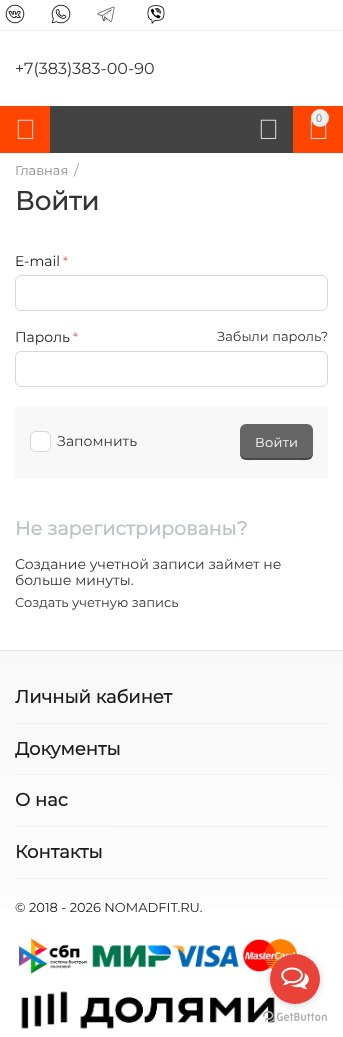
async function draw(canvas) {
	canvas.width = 343;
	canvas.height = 1037;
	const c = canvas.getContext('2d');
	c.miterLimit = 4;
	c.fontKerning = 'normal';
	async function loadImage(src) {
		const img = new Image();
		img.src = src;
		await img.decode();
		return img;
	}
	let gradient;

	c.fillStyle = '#fff';
	c.fillRect(0, 0, 343, 1037);
	c.fillStyle = '#f0f0f0';
	c.fillRect(0, 30, 343, 1);
	c.drawImage(await loadImage('img1.png'), 5, 4, 20, 20);
	c.drawImage(await loadImage('img2.png'), 51, 4, 20, 20);
	c.drawImage(await loadImage('img3.png'), 97, 6, 18, 16);
	c.drawImage(await loadImage('img4.png'), 147, 5, 18, 19);
	c.font = '100 16px Montserrat';
	c.fillStyle = '#333';
	c.fillText('+7(383)383-00-90', 15, 74);
	c.fillStyle = '#434343';
	c.fillRect(50, 106, 243, 47);
	c.fillStyle = '#ff4500';
	c.fillRect(0, 106, 50, 47);
	c.drawImage(await loadImage('img5.png'), 17, 119, 17, 20);
	c.drawImage(await loadImage('img6.png'), 260, 119, 17, 20);
	c.fillRect(293, 106, 50, 47);
	c.drawImage(await loadImage('img5.png'), 310, 119, 17, 20);
	c.fillStyle = '#f0f0f0';
	c.beginPath();
	c.arc(320, 118, 9, 0, 2 * Math.PI);
	c.fill();
	c.font = '11px Liberation Sans';
	c.fillStyle = '#8c8c8c';
	c.fillText('0', 316, 122);
	c.font = '100 13px Montserrat';
	c.fillText('Главная', 15, 175);
	c.font = '100 14px Montserrat';
	c.fillStyle = '#a6a6a6';
	c.fillText('/', 74, 175);
	c.font = 'bold 26px Montserrat';
	c.fillStyle = '#333';
	c.fillText('Войти', 15, 210);
	c.font = '100 14px Montserrat';
	c.fillStyle = '#1a1a1a';
	c.fillText('E-mail', 15, 266);
	c.font = '100 13px Montserrat';
	c.fillStyle = '#ea7162';
	c.fillText('*', 63, 266);
	c.beginPath();
	c.roundRect(15.5, 275.5, 312, 35, 5.5);
	c.strokeStyle = '#d7d7d7';
	c.stroke();
	c.font = '100 14px Montserrat';
	c.fillStyle = '#1a1a1a';
	c.fillText('Пароль', 15, 342);
	c.font = '100 13px Montserrat';
	c.fillStyle = '#ea7162';
	c.fillText('*', 73, 342);
	c.fillStyle = '#333';
	c.fillText('Забыли пароль?', 217, 341);
	c.beginPath();
	c.roundRect(15.5, 351.5, 312, 35, 5.5);
	c.stroke();
	c.fillStyle = '#f8f8f8';
	c.fillRect(15, 407, 313, 71);
	c.fillStyle = '#fff';
	c.beginPath();
	c.roundRect(30.5, 431.5, 20, 20, 5.5);
	c.fill();
	c.stroke();
	c.font = '100 14px Montserrat';
	c.fillStyle = '#333';
	c.fillText('Запомнить', 57, 446);
	c.fillStyle = '#666';
	c.beginPath();
	c.roundRect(240, 424, 73, 36, 6);
	c.fill();
	c.fillStyle = '#0000004d';
	c.beginPath();
	c.moveTo(240, 452);
	c.bezierCurveTo(240, 462, 248, 460, 256, 460);
	c.lineTo(297, 460);
	c.bezierCurveTo(305, 460, 313, 462, 313, 452);
	c.bezierCurveTo(313, 455, 310, 458, 307, 458);
	c.lineTo(246, 458);
	c.bezierCurveTo(243, 458, 240, 455, 240, 452);
	c.closePath();
	c.fill();
	c.letterSpacing = '0.25px';
	c.font = '100 13px Montserrat';
	c.fillStyle = '#fff';
	c.fillText('Войти', 255, 447);
	c.letterSpacing = '0px';
	c.font = 'bold 19px Montserrat';
	c.fillStyle = '#bdc3c7';
	c.fillText('Не зарегистрированы?', 15, 535);
	c.font = '100 14px Montserrat';
	c.fillStyle = '#333';
	c.fillText('Создание учетной записи займет не', 15, 569);
	c.fillText('больше минуты.', 15, 585);
	c.font = '100 13px Montserrat';
	c.fillText('Создать учетную запись', 15, 607);
	gradient = c.createLinearGradient(171, 650, 172, 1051);
	gradient.addColorStop(0, '#f8f8f8');
	gradient.addColorStop(1, '#fff');
	c.fillStyle = gradient;
	c.fillRect(0, 651, 343, 257);
	c.fillStyle = '#e3e3e3';
	c.fillRect(0, 650, 343, 1);
	c.fillStyle = '#f0f0f0';
	c.fillRect(15, 723, 313, 1);
	c.font = 'bold 18px Montserrat';
	c.fillStyle = '#1a1a1a';
	c.fillText('Личный кабинет', 15, 703);
	c.fillStyle = '#f0f0f0';
	c.fillRect(15, 774, 313, 1);
	c.fillStyle = '#1a1a1a';
	c.fillText('Документы', 15, 755);
	c.fillStyle = '#f0f0f0';
	c.fillRect(15, 826, 313, 1);
	c.fillStyle = '#1a1a1a';
	c.fillText('О нас', 15, 806);
	c.fillStyle = '#f0f0f0';
	c.fillRect(15, 878, 313, 1);
	c.fillStyle = '#1a1a1a';
	c.fillText('Контакты', 15, 858);
	c.font = '100 13px Montserrat';
	c.fillText('© 2018 - 2026 NOMADFIT.RU.', 15, 912);
	c.drawImage(await loadImage('img7.png'), 19, 938, 278, 36);
	c.drawImage(await loadImage('img8.png'), 21, 991, 254, 38);
	c.drawImage(await loadImage('img10.png'), 263, 1011, 64, 11);
	c.fillStyle = '#88888866';
	c.filter = 'blur(3.5px)';
	c.beginPath();
	c.roundRect(270, 955, 50, 50, 25);
	c.fill();
	c.filter = 'none';
	c.fillStyle = '#e74339';
	c.beginPath();
	c.arc(295, 979, 25, 0, 2 * Math.PI);
	c.fill();
	c.drawImage(await loadImage('img9.png'), 281, 967, 28, 23);
}

draw(document.querySelector('canvas'));
